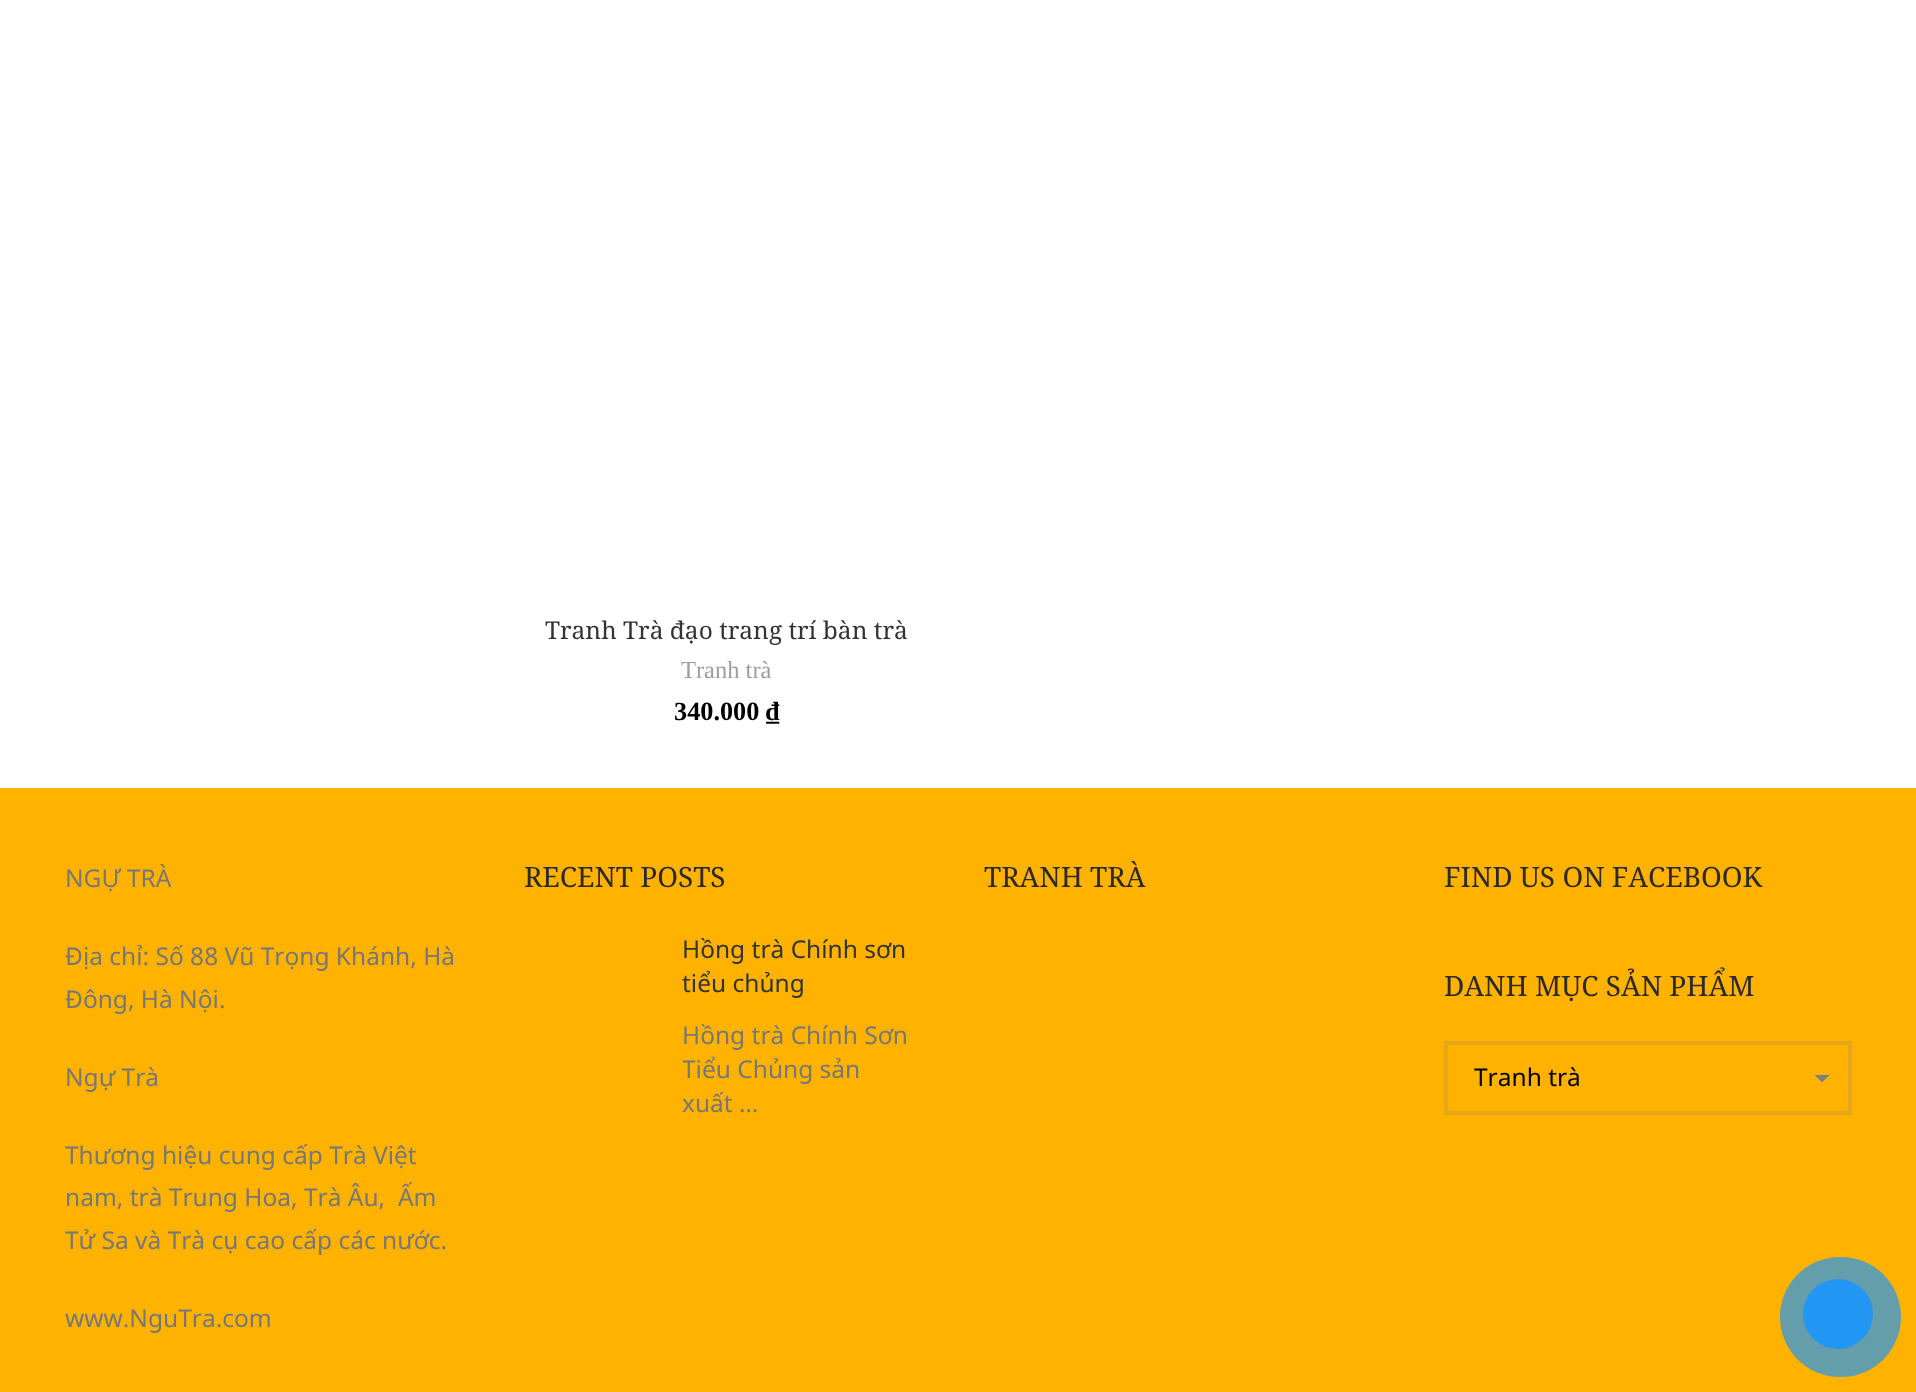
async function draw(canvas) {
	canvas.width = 1916;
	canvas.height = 1392;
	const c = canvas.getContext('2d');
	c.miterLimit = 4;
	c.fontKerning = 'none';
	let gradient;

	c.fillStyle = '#fff';
	c.fillRect(0, 0, 1916, 1392);
	c.font = '24.5px Noto Serif';
	c.fillStyle = '#333';
	c.fillText('Tranh Trà đạo trang trí bàn trà', 545, 639);
	c.font = '24.5px Liberation Serif';
	c.fillStyle = '#9e9e9e';
	c.fillText('Tranh trà', 681, 678);
	c.font = 'bold 26.25px Liberation Serif';
	c.fillStyle = '#000';
	c.fillText('340.000 ₫', 674, 720);
	c.fillStyle = '#ffb200';
	c.fillRect(0, 788, 1916, 604);
	c.font = '24.5px Noto Sans';
	c.fillStyle = '#777';
	for (const [text, x, y] of [
		['NGỰ TRÀ', 65, 887],
		['Địa chỉ: Số 88 Vũ Trọng Khánh, Hà', 65, 965],
		['Đông, Hà Nội.', 65, 1008],
		['Ngự Trà', 65, 1086],
	]) {
		c.fillText(text, x, y);
	}
	c.save();
	c.beginPath();
	c.rect(65, 1055, 408, 207);
	c.clip();
	c.fillText('Thương hiệu cung cấp Trà Việt', 65, 1164);
	c.restore();
	c.fillText('nam, trà Trung Hoa, Trà Âu,  Ấm', 65, 1206);
	c.save();
	c.beginPath();
	c.rect(65, 1055, 408, 207);
	c.clip();
	c.fillText('Tử Sa và Trà cụ cao cấp các nước.', 65, 1249);
	c.restore();
	c.fillText('www.NguTra.com', 65, 1327);
	c.font = '28px Noto Serif';
	c.fillStyle = '#2d2a2a';
	c.fillText('RECENT POSTS', 524, 887);
	c.font = '24.5px Noto Sans';
	c.fillStyle = '#333';
	c.fillText('Hồng trà Chính sơn', 682, 958);
	c.fillText('tiểu chủng', 682, 992);
	c.fillStyle = '#777';
	c.fillText('Hồng trà Chính Sơn', 682, 1044);
	c.save();
	c.beginPath();
	c.rect(683, 931, 250, 189);
	c.clip();
	c.fillText('Tiểu Chủng sản', 682, 1078);
	c.restore();
	c.fillText('xuất …', 682, 1112);
	c.font = '28px Noto Serif';
	c.fillStyle = '#2d2a2a';
	for (const [text, x, y] of [
		['TRANH TRÀ', 984, 887],
		['FIND US ON FACEBOOK', 1444, 887],
		['DANH MỤC SẢN PHẨM', 1444, 996],
	]) {
		c.fillText(text, x, y);
	}
	gradient = c.createLinearGradient(1822, 1074, 1831, 1082);
	gradient.addColorStop(0.5, '#808080');
	gradient.addColorStop(0.5, '#ffb200');
	c.fillStyle = gradient;
	c.fillRect(1822, 1075, 9, 7);
	gradient = c.createLinearGradient(1813, 1082, 1822, 1074);
	gradient.addColorStop(0.5, '#ffb200');
	gradient.addColorStop(0.5, '#808080');
	c.fillStyle = gradient;
	c.fillRect(1813, 1075, 9, 7);
	c.strokeStyle = '#e6a81a';
	c.lineWidth = 4;
	c.strokeRect(1446, 1043, 404, 70);
	c.font = '24.5px Noto Sans';
	c.fillStyle = '#000';
	c.fillText('Tranh trà', 1474, 1086);
	c.fillStyle = '#649eaa';
	c.beginPath();
	c.roundRect(1780, 1257, 121, 120, 60);
	c.fill();
	c.fillStyle = '#2196f3';
	c.beginPath();
	c.arc(1838, 1314, 35, 0, 2 * Math.PI);
	c.fill();
}

draw(document.querySelector('canvas'));
